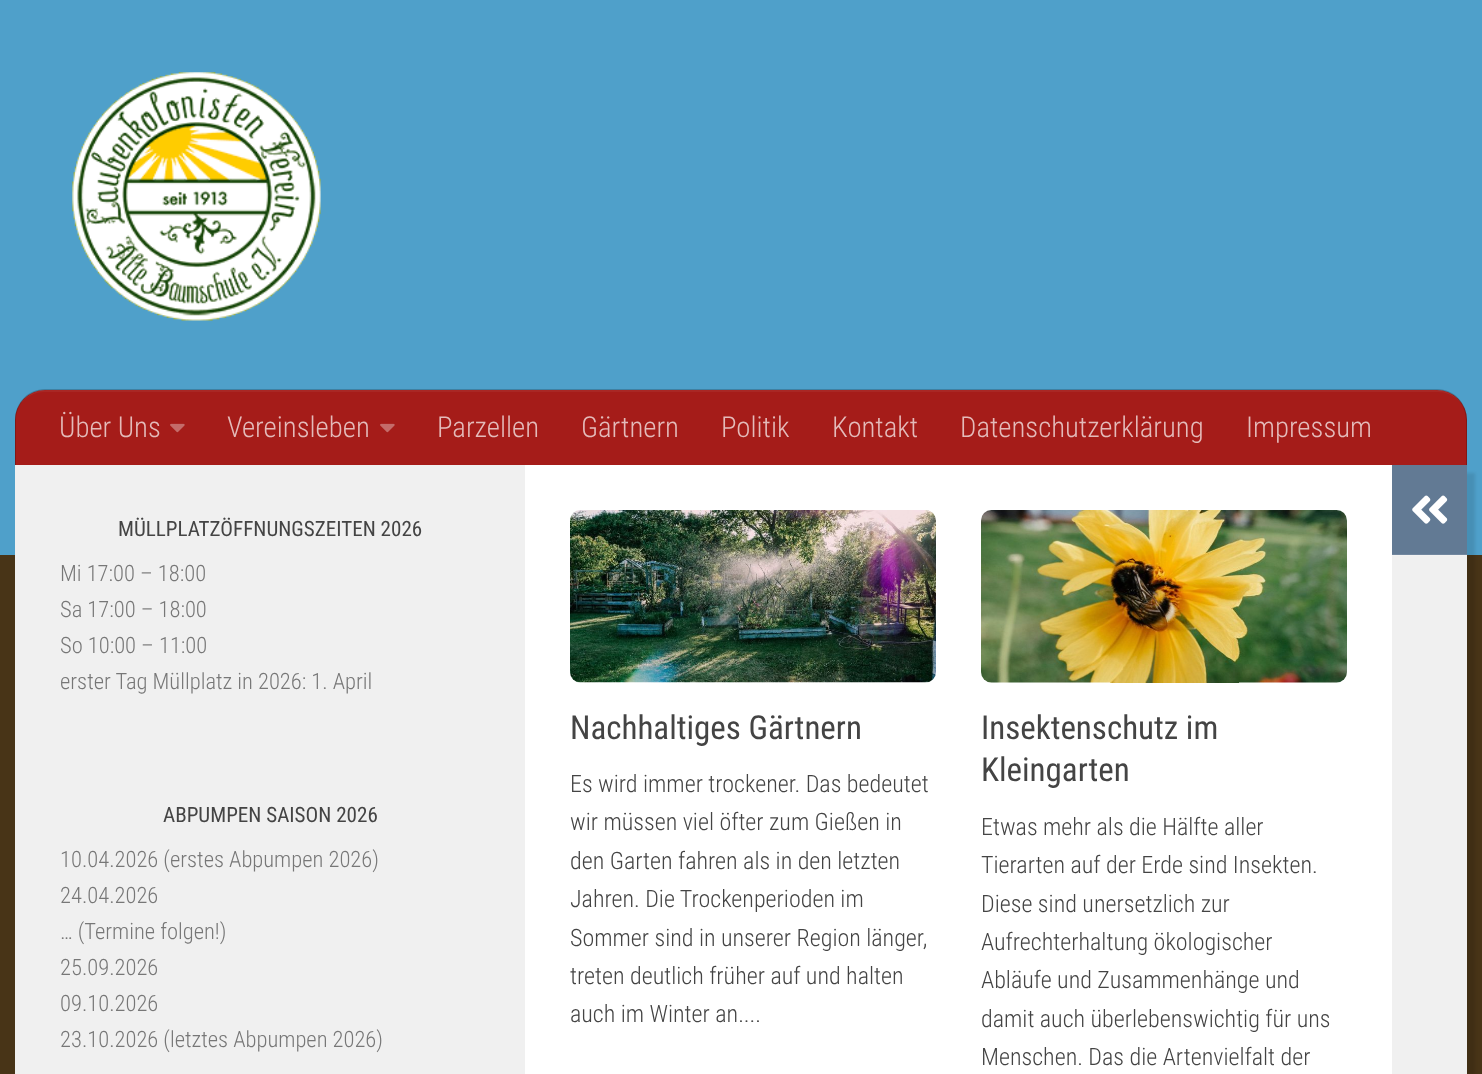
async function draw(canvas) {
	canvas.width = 1482;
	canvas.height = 1074;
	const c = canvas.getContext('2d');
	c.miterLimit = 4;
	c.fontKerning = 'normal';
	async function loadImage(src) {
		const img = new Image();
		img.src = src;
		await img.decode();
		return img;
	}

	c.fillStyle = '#483417';
	c.fillRect(0, 0, 1482, 1074);
	c.fillStyle = '#4fa0ca';
	c.fillRect(0, 0, 1482, 555);
	c.drawImage(await loadImage('img1.png'), 72, 72, 249, 249);
	c.fillStyle = '#3f80a2';
	c.beginPath();
	c.moveTo(45, 389);
	c.bezierCurveTo(28, 389, 15, 403, 15, 420);
	c.bezierCurveTo(15, 403, 28, 390, 45, 390);
	c.lineTo(1437, 390);
	c.bezierCurveTo(1454, 390, 1467, 403, 1467, 420);
	c.bezierCurveTo(1467, 403, 1454, 389, 1437, 389);
	c.closePath();
	c.fill();
	c.fillStyle = '#a51c19';
	c.beginPath();
	c.roundRect(15, 390, 1452, 75, [30, 30, 0, 0]);
	c.fill();
	c.fillStyle = '#00000033';
	c.beginPath();
	c.moveTo(1466, 465);
	c.lineTo(1467, 465);
	c.lineTo(1467, 420);
	c.bezierCurveTo(1467, 403, 1454, 390, 1437, 390);
	c.lineTo(1436, 390);
	c.bezierCurveTo(1452, 390, 1466, 403, 1466, 420);
	c.closePath();
	c.fill();
	c.beginPath();
	c.moveTo(45, 390);
	c.bezierCurveTo(28, 390, 15, 403, 15, 420);
	c.lineTo(15, 465);
	c.lineTo(16, 465);
	c.lineTo(16, 420);
	c.bezierCurveTo(16, 403, 30, 390, 46, 390);
	c.closePath();
	c.fill();
	c.fillStyle = '#ffffff0d';
	c.beginPath();
	c.moveTo(45, 392);
	c.lineTo(1437, 392);
	c.bezierCurveTo(1454, 392, 1467, 405, 1467, 422);
	c.bezierCurveTo(1467, 405, 1455, 390, 1437, 390);
	c.lineTo(45, 390);
	c.bezierCurveTo(27, 390, 15, 405, 15, 422);
	c.bezierCurveTo(15, 405, 28, 392, 45, 392);
	c.closePath();
	c.fill();
	c.font = '300 28.75px Roboto Condensed';
	c.fillStyle = '#e4bbba';
	c.fillText('Über Uns', 59, 437);
	c.drawImage(await loadImage('img2.png'), 170, 423, 15, 10);
	c.fillText('Vereinsleben', 227, 437);
	c.drawImage(await loadImage('img2.png'), 380, 423, 15, 10);
	for (const [text, x, y] of [
		['Parzellen', 437, 437],
		['Gärtnern', 581, 437],
		['Politik', 721, 437],
		['Kontakt', 832, 437],
		['Datenschutzerklärung', 960, 437],
		['Impressum', 1246, 437],
	]) {
		c.fillText(text, x, y);
	}
	c.fillStyle = '#0000001a';
	c.filter = 'blur(1.5px)';
	c.beginPath();
	c.rect(23, 473, 1452, 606);
	c.fill();
	c.filter = 'none';
	c.fillStyle = '#fff';
	c.fillRect(525, 465, 867, 609);
	c.fillStyle = '#f0f0f0';
	c.fillRect(15, 465, 510, 609);
	c.font = '21.1px Roboto Condensed';
	c.fillStyle = '#444';
	c.fillText('MÜLLPLATZÖFFNUNGSZEITEN 2026', 118, 536);
	c.font = '300 22.5px Roboto Condensed';
	c.fillStyle = '#777';
	for (const [text, x, y] of [
		['Mi 17:00 – 18:00', 60, 581],
		['Sa 17:00 – 18:00', 60, 617],
		['So 10:00 – 11:00', 60, 653],
		['erster Tag Müllplatz in 2026: 1. April', 60, 689],
	]) {
		c.fillText(text, x, y);
	}
	c.font = '21.1px Roboto Condensed';
	c.fillStyle = '#444';
	c.fillText('ABPUMPEN SAISON 2026', 163, 822);
	c.font = '300 22.5px Roboto Condensed';
	c.fillStyle = '#777';
	for (const [text, x, y] of [
		['10.04.2026 (erstes Abpumpen 2026)', 60, 867],
		['24.04.2026', 60, 903],
		['… (Termine folgen!)', 60, 939],
		['25.09.2026', 60, 975],
		['09.10.2026', 60, 1011],
		['23.10.2026 (letztes Abpumpen 2026)', 60, 1047],
	]) {
		c.fillText(text, x, y);
	}
	c.drawImage(await loadImage('img3.png'), 570, 510, 366, 173);
	c.font = '33px Roboto Condensed';
	c.fillStyle = '#444';
	c.fillText('Nachhaltiges Gärtnern', 570, 739);
	c.font = '300 24px Roboto Condensed';
	for (const [text, x, y] of [
		['Es wird immer trockener. Das bedeutet', 570, 792],
		['wir müssen viel öfter zum Gießen in', 570, 830],
		['den Garten fahren als in den letzten', 570, 869],
		['Jahren. Die Trockenperioden im', 570, 907],
		['Sommer sind in unserer Region länger,', 570, 946],
		['treten deutlich früher auf und halten', 570, 984],
		['auch im Winter an....', 570, 1022],
	]) {
		c.fillText(text, x, y);
	}
	c.drawImage(await loadImage('img4.png'), 981, 510, 366, 173);
	c.font = '33px Roboto Condensed';
	c.fillText('Insektenschutz im', 981, 739);
	c.fillText('Kleingarten', 981, 781);
	c.font = '300 24px Roboto Condensed';
	for (const [text, x, y] of [
		['Etwas mehr als die Hälfte aller', 981, 835],
		['Tierarten auf der Erde sind Insekten.', 981, 873],
		['Diese sind unersetzlich zur', 981, 912],
		['Aufrechterhaltung ökologischer', 981, 950],
		['Abläufe und Zusammenhänge und', 981, 988],
		['damit auch überlebenswichtig für uns', 981, 1027],
		['Menschen. Das die Artenvielfalt der', 981, 1065],
	]) {
		c.fillText(text, x, y);
	}
	c.fillStyle = '#627a94';
	c.fillRect(1392, 465, 75, 89);
	c.fillStyle = '#72879f';
	c.fillRect(1392, 554, 75, 1);
	c.drawImage(await loadImage('img5.png'), 1412, 495, 36, 29);
	c.fillStyle = '#f0f0f0';
	c.fillRect(1392, 556, 75, 518);
	c.fillStyle = '#f2f2f2';
	c.fillRect(1392, 555, 75, 1);
}

draw(document.querySelector('canvas'));
